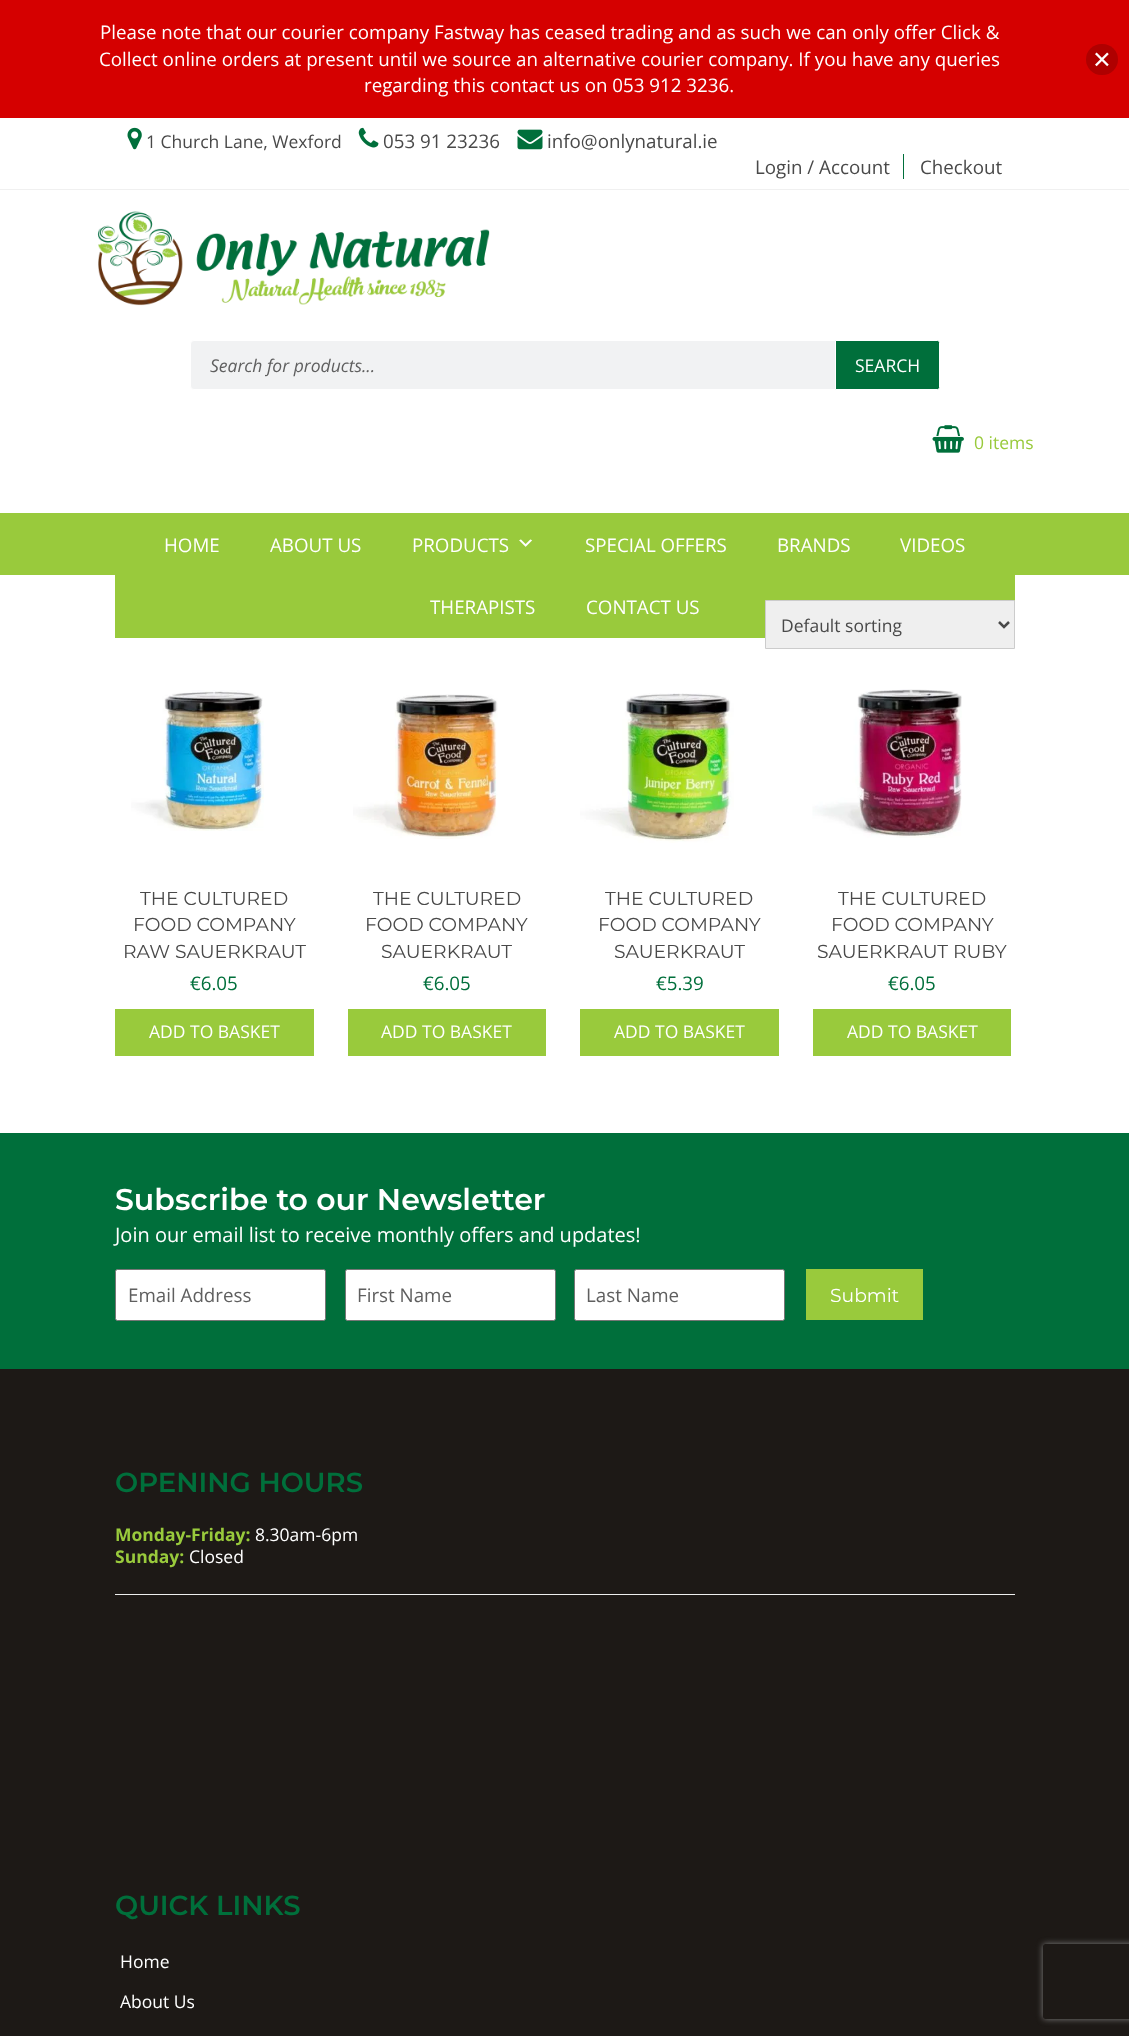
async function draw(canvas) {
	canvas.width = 1129;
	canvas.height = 2036;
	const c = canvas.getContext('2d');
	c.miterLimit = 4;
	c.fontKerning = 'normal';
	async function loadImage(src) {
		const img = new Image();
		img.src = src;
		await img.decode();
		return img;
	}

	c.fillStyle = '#fff';
	c.fillRect(0, 0, 1129, 2036);
	c.fillStyle = '#d50000';
	c.fillRect(0, 0, 1129, 118);
	c.font = '18.75px Open Sans';
	c.fillStyle = '#fff';
	for (const [text, x, y] of [
		['Please note that our courier company Fastway has ceased trading and as such we can only offer Click &', 100, 39],
		['Collect online orders at present until we source an alternative courier company. If you have any queries', 99, 66],
		['regarding this contact us on 053 912 3236.', 364, 92],
	]) {
		c.fillText(text, x, y);
	}
	c.fillStyle = '#af0000';
	c.beginPath();
	c.roundRect(1086, 44, 32, 31, 15.5);
	c.fill();
	c.drawImage(await loadImage('img1.png'), 1095, 52, 14, 15);
	c.fillStyle = '#f0f0f0';
	c.fillRect(0, 189, 1129, 1);
	c.drawImage(await loadImage('img2.png'), 127, 127, 15, 23);
	c.font = '17.5px Open Sans';
	c.fillStyle = '#494949';
	c.fillText('1 Church Lane, Wexford', 146, 148);
	c.drawImage(await loadImage('img3.png'), 358, 127, 21, 21);
	c.font = '18.75px Open Sans';
	c.fillText('053 91 23236', 383, 148);
	c.drawImage(await loadImage('img4.png'), 517, 129, 26, 21);
	c.fillText('info@onlynatural.ie', 547, 148);
	c.fillStyle = '#006f3b';
	c.fillRect(903, 154, 1, 25);
	c.fillStyle = '#494949';
	c.fillText('Login / Account', 755, 174);
	c.fillText('Checkout', 920, 174);
	c.drawImage(await loadImage('img5.png'), 97, 211, 393, 95);
	c.fillStyle = '#f1f2f3';
	c.beginPath();
	c.roundRect(190.5, 340.5, 749, 49, 3.5);
	c.fill();
	c.strokeStyle = '#fff';
	c.stroke();
	c.font = 'italic 17.5px Open Sans';
	c.fillStyle = '#5f5f5f';
	c.fillText('Search for products...', 210, 372);
	c.fillStyle = '#006f3b';
	c.beginPath();
	c.roundRect(835.5, 340.5, 104, 49, [0, 2, 2, 0]);
	c.fill();
	c.stroke();
	c.font = '17.5px Open Sans';
	c.fillStyle = '#fff';
	c.fillText('SEARCH', 855, 372);
	c.drawImage(await loadImage('img6.png'), 932, 425, 32, 28);
	c.fillStyle = '#99ca3c';
	c.fillText('0 items', 974, 449);
	c.fillRect(0, 513, 1129, 62);
	c.fillRect(115, 575, 900, 63);
	c.font = '18.75px Open Sans';
	c.fillStyle = '#fff';
	for (const [text, x, y] of [
		['HOME', 164, 552],
		['ABOUT US', 270, 552],
		['PRODUCTS', 412, 552],
	]) {
		c.fillText(text, x, y);
	}
	c.drawImage(await loadImage('img7.png'), 519, 539, 14, 8);
	for (const [text, x, y] of [
		['SPECIAL OFFERS', 585, 552],
		['BRANDS', 777, 552],
		['VIDEOS', 900, 552],
		['THERAPISTS', 430, 614],
		['CONTACT US', 586, 614],
	]) {
		c.fillText(text, x, y);
	}
	c.fillStyle = '#efefef';
	c.beginPath();
	c.rect(765.5, 600.5, 249, 48);
	c.fill();
	c.strokeStyle = '#ccc';
	c.stroke();
	c.beginPath();
	c.moveTo(999, 622);
	c.lineTo(1004, 627);
	c.lineTo(1009, 622);
	c.strokeStyle = '#494949';
	c.lineWidth = 2.5;
	c.stroke();
	c.font = '17.5px Open Sans';
	c.fillStyle = '#494949';
	c.fillText('Default sorting', 781, 632);
	c.drawImage(await loadImage('img8.png'), 131, 690, 133, 141);
	c.font = '18.75px Montserrat';
	for (const [text, x, y] of [
		['THE CULTURED', 140, 905],
		['FOOD COMPANY', 133, 931],
		['RAW SAUERKRAUT', 123, 958],
	]) {
		c.fillText(text, x, y);
	}
	c.font = '18.75px Open Sans';
	c.fillStyle = '#006f3b';
	c.fillText('€6.05', 190, 990);
	c.fillStyle = '#99ca3c';
	c.fillRect(115, 1009, 199, 47);
	c.font = '17.5px Open Sans';
	c.fillStyle = '#fff';
	c.fillText('ADD TO BASKET', 149, 1038);
	c.drawImage(await loadImage('img9.png'), 353, 694, 145, 145);
	c.font = '18.75px Montserrat';
	c.fillStyle = '#494949';
	for (const [text, x, y] of [
		['THE CULTURED', 373, 905],
		['FOOD COMPANY', 365, 931],
		['SAUERKRAUT', 381, 958],
	]) {
		c.fillText(text, x, y);
	}
	c.font = '18.75px Open Sans';
	c.fillStyle = '#006f3b';
	c.fillText('€6.05', 423, 990);
	c.fillStyle = '#99ca3c';
	c.fillRect(348, 1009, 198, 47);
	c.font = '17.5px Open Sans';
	c.fillStyle = '#fff';
	c.fillText('ADD TO BASKET', 381, 1038);
	c.drawImage(await loadImage('img10.png'), 580, 693, 154, 150);
	c.font = '18.75px Montserrat';
	c.fillStyle = '#494949';
	for (const [text, x, y] of [
		['THE CULTURED', 605, 905],
		['FOOD COMPANY', 598, 931],
		['SAUERKRAUT', 614, 958],
	]) {
		c.fillText(text, x, y);
	}
	c.font = '18.75px Open Sans';
	c.fillStyle = '#006f3b';
	c.fillText('€5.39', 656, 990);
	c.fillStyle = '#99ca3c';
	c.fillRect(580, 1009, 199, 47);
	c.font = '17.5px Open Sans';
	c.fillStyle = '#fff';
	c.fillText('ADD TO BASKET', 614, 1038);
	c.drawImage(await loadImage('img11.png'), 812, 689, 150, 149);
	c.font = '18.75px Montserrat';
	c.fillStyle = '#494949';
	for (const [text, x, y] of [
		['THE CULTURED', 838, 905],
		['FOOD COMPANY', 831, 931],
		['SAUERKRAUT RUBY', 817, 958],
	]) {
		c.fillText(text, x, y);
	}
	c.font = '18.75px Open Sans';
	c.fillStyle = '#006f3b';
	c.fillText('€6.05', 888, 990);
	c.fillStyle = '#99ca3c';
	c.fillRect(813, 1009, 198, 47);
	c.font = '17.5px Open Sans';
	c.fillStyle = '#fff';
	c.fillText('ADD TO BASKET', 847, 1038);
	c.fillStyle = '#006f3b';
	c.fillRect(0, 1133, 1129, 236);
	c.font = '600 30px Montserrat';
	c.fillStyle = '#fff';
	c.fillText('Subscribe to our Newsletter', 115, 1210);
	c.font = '20px Open Sans';
	c.fillText('Join our email list to receive monthly offers and updates!', 115, 1242);
	c.beginPath();
	c.roundRect(115.5, 1269.5, 210, 51, 2);
	c.fill();
	c.strokeStyle = '#767676';
	c.lineWidth = 1;
	c.stroke();
	c.font = '18.75px Open Sans';
	c.fillStyle = '#5f5f5f';
	c.fillText('Email Address', 128, 1302);
	c.fillStyle = '#fff';
	c.beginPath();
	c.roundRect(345.5, 1269.5, 210, 51, 2);
	c.fill();
	c.stroke();
	c.fillStyle = '#5f5f5f';
	c.fillText('First Name', 357, 1302);
	c.fillStyle = '#fff';
	c.beginPath();
	c.roundRect(574.5, 1269.5, 210, 51, 2);
	c.fill();
	c.stroke();
	c.fillStyle = '#5f5f5f';
	c.fillText('Last Name', 586, 1302);
	c.fillStyle = '#99ca3c';
	c.fillRect(806, 1269, 117, 51);
	c.font = '18.75px Montserrat';
	c.fillStyle = '#fff';
	c.fillText('Submit', 830, 1302);
	c.fillStyle = '#1d1916';
	c.fillRect(0, 1369, 1129, 667);
	c.save();
	c.beginPath();
	c.moveTo(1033, 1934);
	c.lineTo(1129, 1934);
	c.lineTo(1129, 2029);
	c.lineTo(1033, 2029);
	c.closePath();
	c.moveTo(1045.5, 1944);
	c.lineTo(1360.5, 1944);
	c.bezierCurveTo(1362, 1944, 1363, 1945, 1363, 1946.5);
	c.lineTo(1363, 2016.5);
	c.bezierCurveTo(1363, 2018, 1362, 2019, 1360.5, 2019);
	c.lineTo(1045.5, 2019);
	c.bezierCurveTo(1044, 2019, 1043, 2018, 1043, 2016.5);
	c.lineTo(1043, 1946.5);
	c.bezierCurveTo(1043, 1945, 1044, 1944, 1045.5, 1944);
	c.closePath();
	c.clip('evenodd');
	c.fillStyle = '#808080';
	c.filter = 'blur(3px)';
	c.beginPath();
	c.roundRect(1043, 1944, 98, 75, 2.5);
	c.fill();
	c.filter = 'none';
	c.restore();
	c.font = '600 27.5px Montserrat';
	c.fillStyle = '#006f3b';
	c.fillText('OPENING HOURS', 115, 1492);
	c.font = 'bold 17.5px Open Sans';
	c.fillStyle = '#99ca3c';
	c.fillText('Monday-Friday:', 115, 1541);
	c.font = '17.5px Open Sans';
	c.fillStyle = '#fff';
	c.fillText('8.30am-6pm', 255, 1541);
	c.font = 'bold 17.5px Open Sans';
	c.fillStyle = '#99ca3c';
	c.fillText('Sunday:', 115, 1563);
	c.font = '17.5px Open Sans';
	c.fillStyle = '#fff';
	c.fillText('Closed', 189, 1563);
	c.fillStyle = '#eee';
	c.fillRect(115, 1594, 900, 1);
	c.font = '600 27.5px Montserrat';
	c.fillStyle = '#006f3b';
	c.fillText('QUICK LINKS', 115, 1915);
	c.font = '17.5px Open Sans';
	c.fillStyle = '#fff';
	c.fillText('Home', 120, 1968);
	c.fillText('About Us', 120, 2008);
}

draw(document.querySelector('canvas'));
